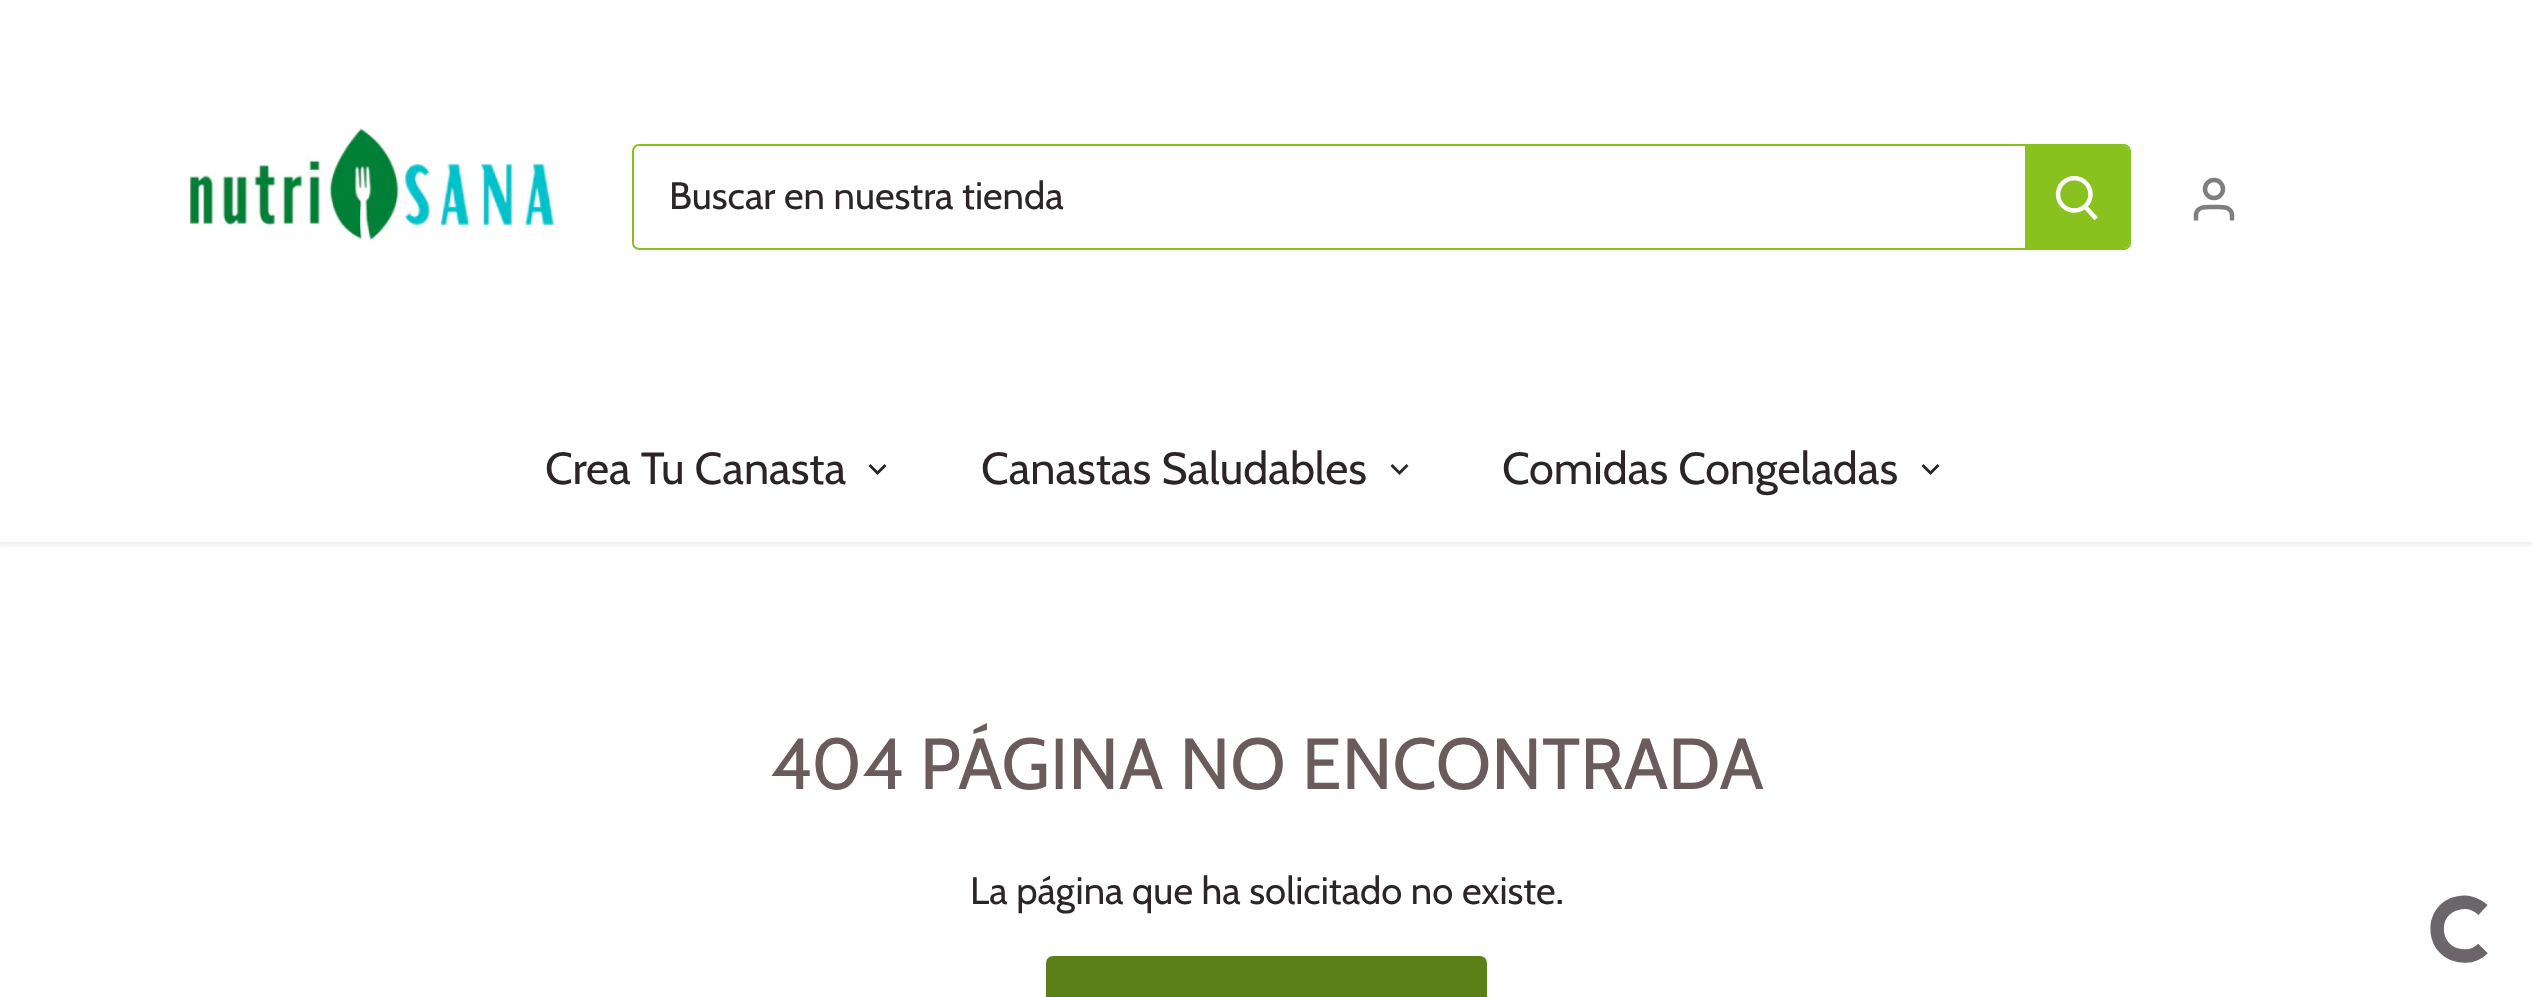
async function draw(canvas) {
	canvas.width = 2532;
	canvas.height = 997;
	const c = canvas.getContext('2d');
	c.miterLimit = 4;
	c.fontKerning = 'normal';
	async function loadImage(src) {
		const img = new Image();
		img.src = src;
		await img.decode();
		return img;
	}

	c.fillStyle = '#fff';
	c.fillRect(0, 0, 2532, 997);
	c.save();
	c.beginPath();
	c.rect(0, 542, 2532, 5);
	c.clip();
	c.fillStyle = '#00000014';
	c.filter = 'blur(3.5px)';
	c.beginPath();
	c.rect(-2, -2, 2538, 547);
	c.fill();
	c.filter = 'none';
	c.restore();
	c.drawImage(await loadImage('img1.png'), 188, 126, 369, 117);
	c.beginPath();
	c.roundRect(633, 145, 1497, 104, 6);
	c.strokeStyle = '#89c21e';
	c.lineWidth = 2;
	c.stroke();
	c.font = '38.25px Cabin';
	c.fillStyle = '#2c2528';
	c.fillText('Buscar en nuestra tienda', 669, 209);
	c.fillStyle = '#89c21e';
	c.beginPath();
	c.roundRect(2025, 146, 104, 102, [0, 5, 5, 0]);
	c.fill();
	c.drawImage(await loadImage('img2.png'), 2055, 176, 43, 45);
	c.beginPath();
	c.arc(2214, 189, 9, 0, 2 * Math.PI);
	c.strokeStyle = '#7f7f7f';
	c.lineWidth = 4.5;
	c.stroke();
	c.beginPath();
	c.moveTo(2232, 220.5);
	c.lineTo(2232, 214);
	c.bezierCurveTo(2230, 205.5, 2220.5, 207, 2214, 207);
	c.bezierCurveTo(2207.5, 207, 2198, 205.5, 2196, 214);
	c.lineTo(2196, 220.5);
	c.stroke();
	c.font = '45px Cabin';
	c.fillStyle = '#2c2528';
	c.fillText('Crea Tu Canasta', 545, 484);
	c.beginPath();
	c.moveTo(870.5, 464);
	c.lineTo(877.5, 471);
	c.lineTo(884.5, 464);
	c.lineTo(886.5, 466);
	c.lineTo(877.5, 475);
	c.lineTo(868.5, 466);
	c.closePath();
	c.fill();
	c.fillText('Canastas Saludables', 981, 484);
	c.beginPath();
	c.moveTo(1392.5, 464);
	c.lineTo(1399.5, 471);
	c.lineTo(1406.5, 464);
	c.lineTo(1408.5, 466);
	c.lineTo(1399.5, 475);
	c.lineTo(1390.5, 466);
	c.closePath();
	c.fill();
	c.fillText('Comidas Congeladas', 1502, 484);
	c.beginPath();
	c.moveTo(1923.5, 464);
	c.lineTo(1930.5, 471);
	c.lineTo(1937.5, 464);
	c.lineTo(1939.5, 466);
	c.lineTo(1930.5, 475);
	c.lineTo(1921.5, 466);
	c.closePath();
	c.fill();
	c.font = '72px Cabin';
	c.fillStyle = '#6a5b5c';
	c.fillText('404 PÁGINA NO ENCONTRADA', 770, 789);
	c.font = '38.25px Cabin';
	c.fillStyle = '#2c2528';
	c.fillText('La página que ha solicitado no existe.', 970, 904);
	c.fillStyle = '#5c8018';
	c.beginPath();
	c.roundRect(1048.5, 958.5, 436, 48, 4.5);
	c.fill();
	c.strokeStyle = '#5c8018';
	c.lineWidth = 5;
	c.stroke();
	c.beginPath();
	c.moveTo(2483, 948.5);
	c.bezierCurveTo(2478, 953.5, 2471, 956.5, 2464, 956);
	c.bezierCurveTo(2431.5, 956, 2427, 909, 2458.5, 903);
	c.bezierCurveTo(2467, 901, 2476.5, 904, 2483, 910);
	c.strokeStyle = '#6b6669';
	c.lineWidth = 13.5;
	c.stroke();
}

draw(document.querySelector('canvas'));
